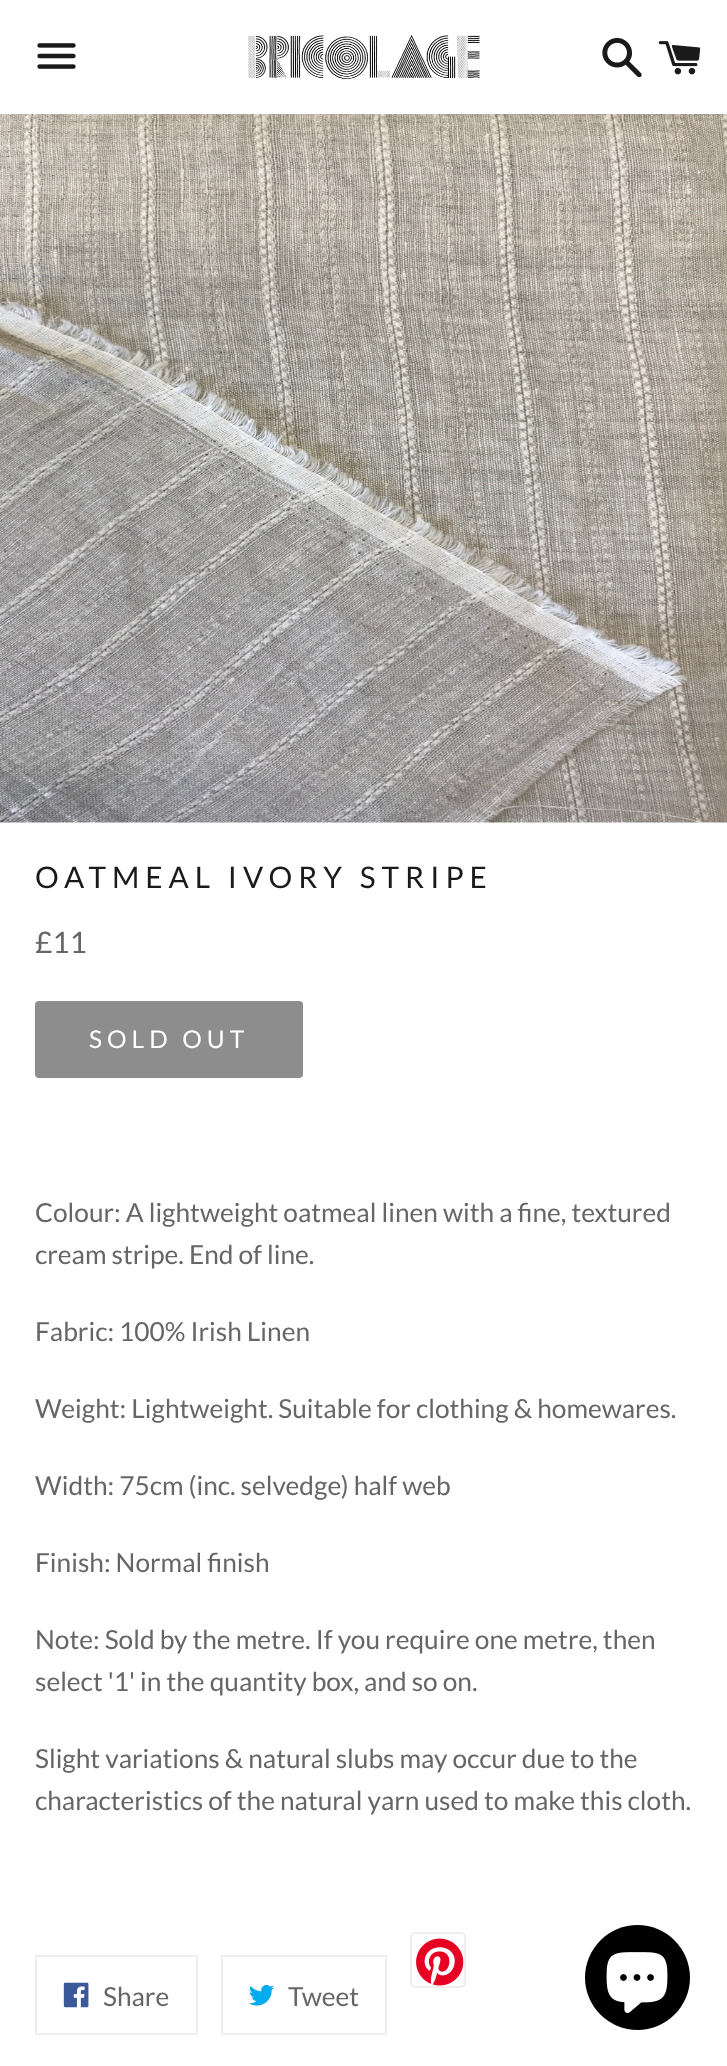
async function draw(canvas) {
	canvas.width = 727;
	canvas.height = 2066;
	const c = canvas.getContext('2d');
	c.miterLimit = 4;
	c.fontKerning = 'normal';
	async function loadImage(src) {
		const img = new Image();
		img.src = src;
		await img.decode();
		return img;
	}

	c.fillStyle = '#fff';
	c.fillRect(0, 0, 727, 2066);
	c.drawImage(await loadImage('img1.png'), 37, 43, 39, 26);
	c.drawImage(await loadImage('img2.png'), 248, 35, 232, 44);
	c.drawImage(await loadImage('img3.png'), 602, 37, 40, 41);
	c.drawImage(await loadImage('img4.png'), 658, 41, 43, 34);
	c.drawImage(await loadImage('img5.png'), 0, 114, 727, 709);
	c.letterSpacing = '6px';
	c.font = '29.75px Lato';
	c.fillStyle = '#1a1a1a';
	c.fillText('OATMEAL IVORY STRIPE', 35, 888);
	c.letterSpacing = '0px';
	c.fillStyle = '#666';
	c.fillText('£11', 35, 953);
	c.fillStyle = '#8d8d8d';
	c.beginPath();
	c.roundRect(35, 1001, 268, 77, 4);
	c.fill();
	c.letterSpacing = '5px';
	c.font = '24.5px Lato';
	c.fillStyle = '#fff';
	c.fillText('SOLD OUT', 89, 1048);
	c.letterSpacing = '0px';
	c.font = '26.25px Lato';
	c.fillStyle = '#666';
	for (const [text, x, y] of [
		['Colour: A lightweight oatmeal linen with a fine, textured', 35, 1222],
		['cream stripe. End of line.', 35, 1264],
		['Fabric: 100% Irish Linen', 35, 1341],
		['Weight: Lightweight. Suitable for clothing & homewares.', 35, 1418],
		['Width: 75cm (inc. selvedge) half web', 35, 1495],
		['Finish: Normal finish', 35, 1572],
		['Note: Sold by the metre. If you require one metre, then', 35, 1649],
		['select \'1\' in the quantity box, and so on.', 35, 1691],
		['Slight variations & natural slubs may occur due to the', 35, 1768],
		['characteristics of the natural yarn used to make this cloth.', 35, 1810],
	]) {
		c.fillText(text, x, y);
	}
	c.drawImage(await loadImage('img6.png'), 416, 1938, 48, 48);
	c.beginPath();
	c.roundRect(411, 1933, 54, 54, 4);
	c.strokeStyle = '#eee';
	c.lineWidth = 2;
	c.stroke();
	c.strokeRect(36, 1956, 161, 78);
	c.drawImage(await loadImage('img7.png'), 63, 1982, 26, 26);
	c.fillText('Share', 103, 2006);
	c.strokeRect(222, 1956, 164, 78);
	c.drawImage(await loadImage('img8.png'), 249, 1985, 25, 21);
	c.fillText('Tweet', 288, 2006);
	c.fillStyle = '#000';
	c.beginPath();
	c.arc(637.5, 1977.5, 52.5, 0, 2 * Math.PI);
	c.fill();
	c.drawImage(await loadImage('img9.png'), 606, 1952, 62, 61);
}

draw(document.querySelector('canvas'));
